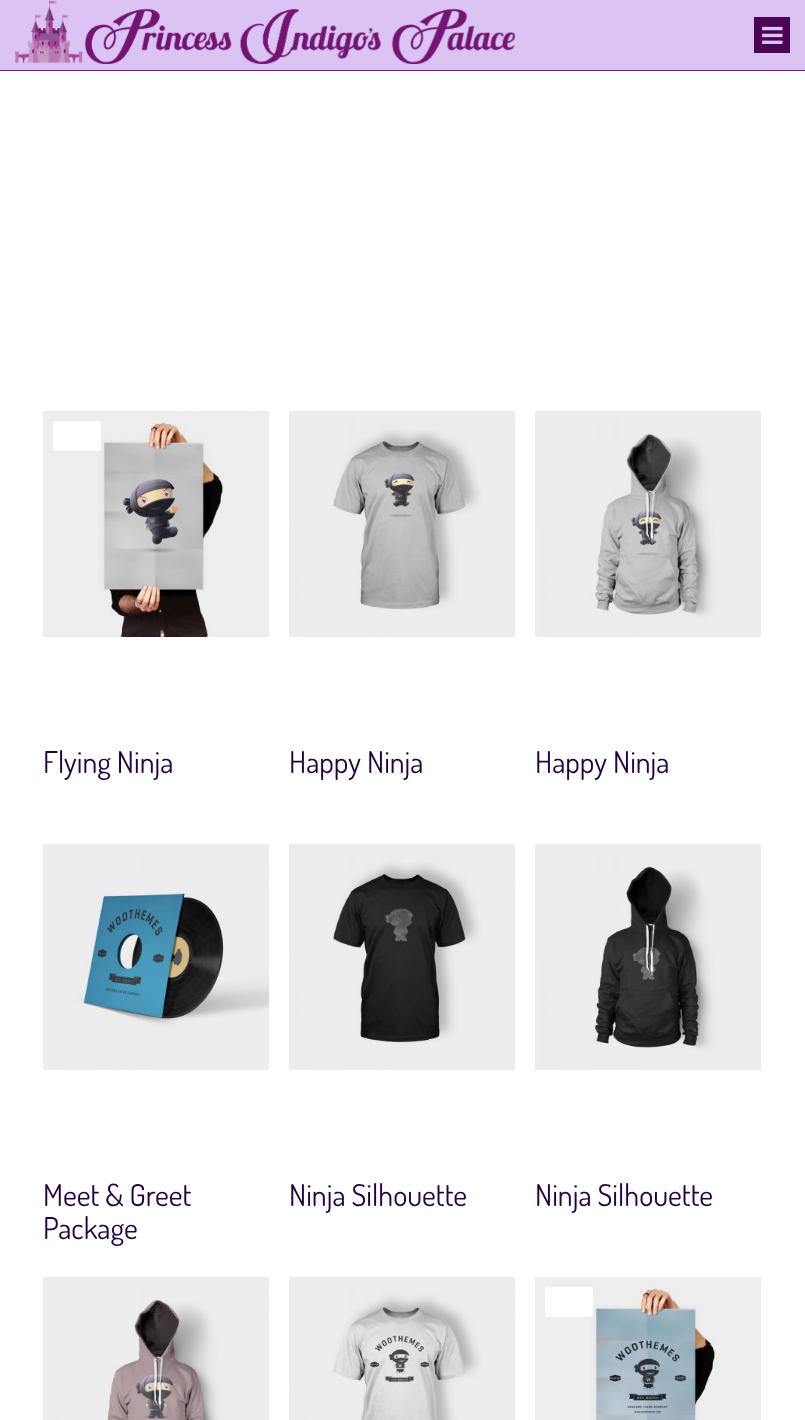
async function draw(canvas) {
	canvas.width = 805;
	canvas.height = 1420;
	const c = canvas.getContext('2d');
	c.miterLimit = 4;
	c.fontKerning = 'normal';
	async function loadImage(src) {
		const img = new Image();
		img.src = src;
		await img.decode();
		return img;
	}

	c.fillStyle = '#fff';
	c.fillRect(0, 0, 805, 1420);
	c.fillStyle = '#dbc3f3';
	c.fillRect(0, 0, 805, 70);
	c.fillStyle = '#810d90';
	c.fillRect(0, 70, 805, 1);
	c.drawImage(await loadImage('img1.png'), 15, 0, 500, 64);
	c.fillStyle = '#4c0555';
	c.fillRect(754, 17, 36, 36);
	c.drawImage(await loadImage('img2.png'), 762, 26, 21, 18);
	c.drawImage(await loadImage('img3.png'), 43, 411, 226, 226);
	c.fillStyle = '#fff';
	c.beginPath();
	c.roundRect(53, 421, 48, 30, 2);
	c.fill();
	c.font = '30px Dosis';
	c.fillStyle = '#21023f';
	c.fillText('Flying Ninja', 43, 773);
	c.drawImage(await loadImage('img4.png'), 289, 411, 226, 226);
	c.fillText('Happy Ninja', 289, 773);
	c.drawImage(await loadImage('img5.png'), 535, 411, 226, 226);
	c.fillText('Happy Ninja', 535, 773);
	c.drawImage(await loadImage('img6.png'), 43, 844, 226, 226);
	c.fillText('Meet & Greet', 43, 1206);
	c.fillText('Package', 43, 1239);
	c.drawImage(await loadImage('img7.png'), 289, 844, 226, 226);
	c.fillText('Ninja Silhouette', 289, 1206);
	c.drawImage(await loadImage('img8.png'), 535, 844, 226, 226);
	c.fillText('Ninja Silhouette', 535, 1206);
	c.drawImage(await loadImage('img9.png'), 43, 1277, 226, 143);
	c.drawImage(await loadImage('img10.png'), 289, 1277, 226, 143);
	c.drawImage(await loadImage('img11.png'), 535, 1277, 226, 143);
	c.fillStyle = '#fff';
	c.beginPath();
	c.roundRect(545, 1287, 48, 30, 2);
	c.fill();
}

draw(document.querySelector('canvas'));
